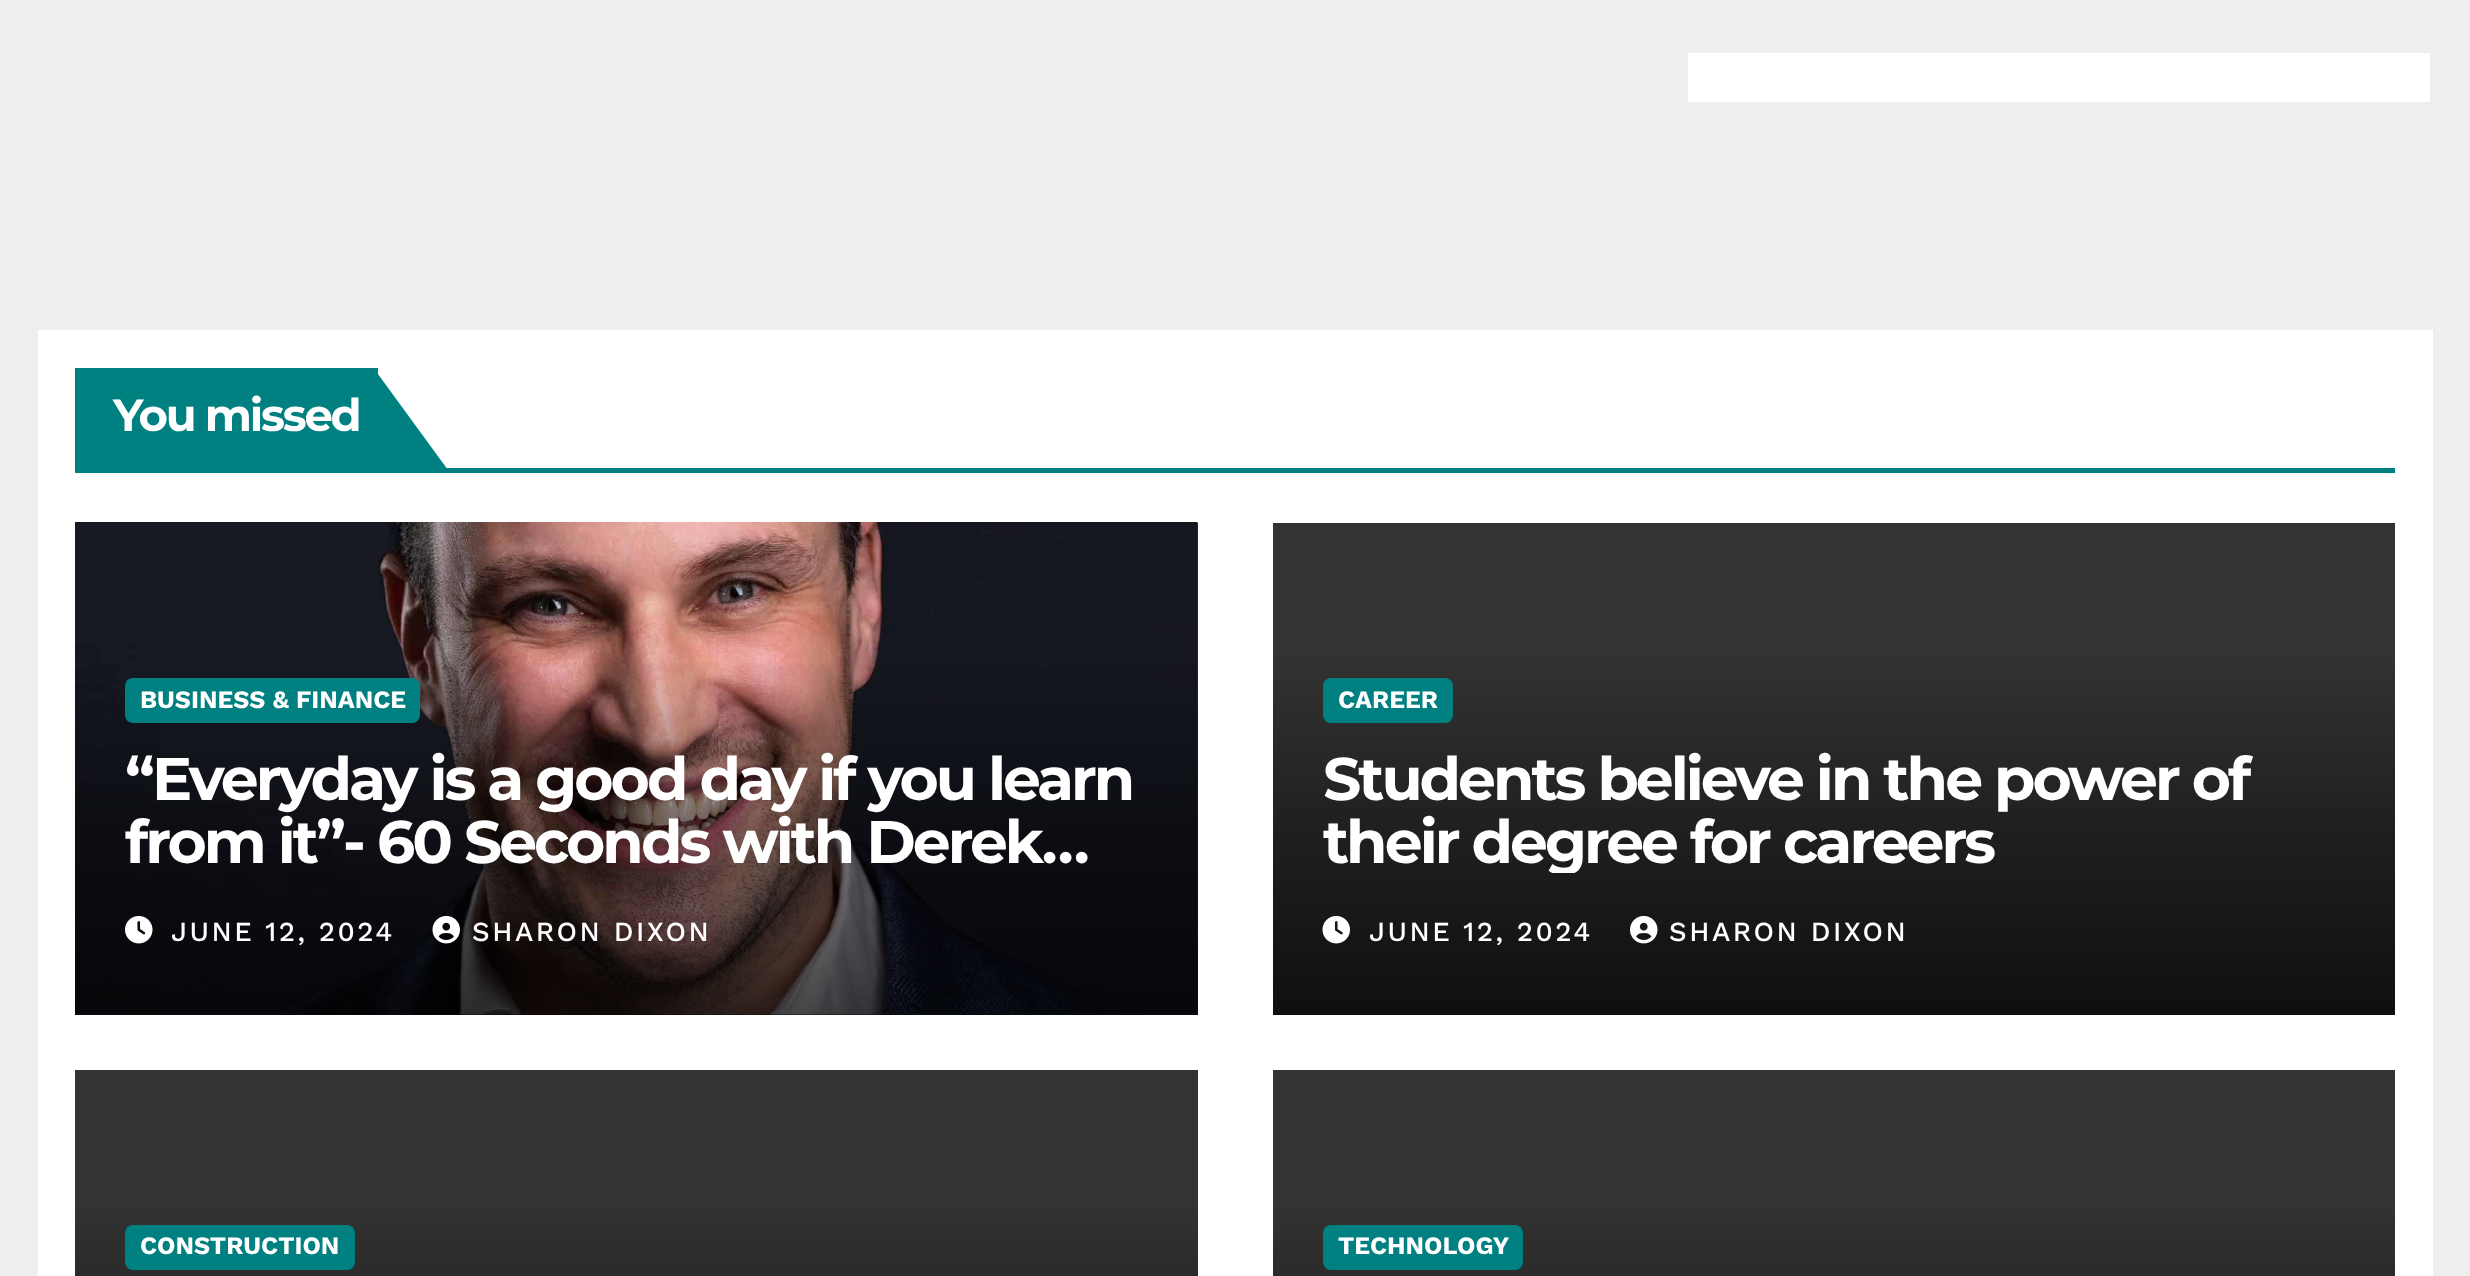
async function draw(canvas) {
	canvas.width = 2470;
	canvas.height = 1276;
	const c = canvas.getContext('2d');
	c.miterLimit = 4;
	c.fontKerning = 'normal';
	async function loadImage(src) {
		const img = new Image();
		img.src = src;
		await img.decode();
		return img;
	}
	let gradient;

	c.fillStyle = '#eee';
	c.fillRect(0, 0, 2470, 1276);
	for (const [x, y, w, h, color] of [
		[1688, 53, 742, 49, '#fff'],
		[38, 330, 2395, 946, '#fff'],
		[75, 468, 2320, 5, '#008080'],
		[75, 368, 303, 100, '#008080'],
	]) {
		c.fillStyle = color;
		c.fillRect(x, y, w, h);
	}
	c.letterSpacing = '-2.25px';
	c.font = 'bold 45px Montserrat';
	c.fillStyle = '#fff';
	c.fillText('You missed', 113, 431);
	c.fillStyle = '#008080';
	c.beginPath();
	c.moveTo(448, 470);
	c.lineTo(375, 470);
	c.lineTo(375, 370);
	c.closePath();
	c.fill();
	c.fillStyle = '#333';
	c.fillRect(75, 523, 1123, 492);
	c.drawImage(await loadImage('img1.png'), 75, 522, 1123, 493);
	gradient = c.createLinearGradient(636, 653, 636, 1015);
	gradient.addColorStop(0, '#00000000');
	gradient.addColorStop(0.5, '#00000066');
	gradient.addColorStop(1, '#000000b3');
	c.fillStyle = gradient;
	c.fillRect(75, 663, 1123, 352);
	c.fillStyle = '#008080';
	c.beginPath();
	c.roundRect(125, 678, 295, 45, 8);
	c.fill();
	c.letterSpacing = '0px';
	c.font = 'bold 25px Work Sans';
	c.fillStyle = '#fff';
	c.fillText('BUSINESS & FINANCE', 140, 708);
	c.letterSpacing = '-3px';
	c.font = 'bold 60px Montserrat';
	c.fillText('“Everyday is a good day if you learn', 125, 800);
	c.fillText('from it”- 60 Seconds with Derek…', 125, 863);
	c.drawImage(await loadImage('img2.png'), 125, 915, 28, 29);
	c.letterSpacing = '2.5px';
	c.font = '500 27.5px Work Sans';
	c.fillText('JUNE 12, 2024', 171, 941);
	c.drawImage(await loadImage('img3.png'), 432, 915, 28, 29);
	c.fillText('SHARON DIXON', 472, 941);
	c.fillStyle = '#333';
	c.fillRect(1273, 523, 1122, 130);
	gradient = c.createLinearGradient(1834, 653, 1834, 1015);
	gradient.addColorStop(0, '#333');
	gradient.addColorStop(0.5, '#1f1f1f');
	gradient.addColorStop(1, '#0f0f0f');
	c.fillStyle = gradient;
	c.fillRect(1273, 653, 1122, 362);
	c.fillStyle = '#008080';
	c.beginPath();
	c.roundRect(1323, 678, 130, 45, 8);
	c.fill();
	c.letterSpacing = '0px';
	c.font = 'bold 25px Work Sans';
	c.fillStyle = '#fff';
	c.fillText('CAREER', 1338, 708);
	c.letterSpacing = '-3px';
	c.font = 'bold 60px Montserrat';
	c.fillText('Students believe in the power of', 1323, 800);
	c.save();
	c.beginPath();
	c.rect(1323, 748, 1022, 125);
	c.clip();
	c.fillText('their degree for careers', 1323, 863);
	c.restore();
	c.drawImage(await loadImage('img4.png'), 1322, 915, 28, 29);
	c.letterSpacing = '2.5px';
	c.font = '500 27.5px Work Sans';
	c.fillText('JUNE 12, 2024', 1369, 941);
	c.drawImage(await loadImage('img5.png'), 1630, 915, 28, 29);
	c.fillText('SHARON DIXON', 1669, 941);
	c.fillStyle = '#333';
	c.fillRect(75, 1070, 1123, 130);
	gradient = c.createLinearGradient(636, 1200, 636, 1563);
	gradient.addColorStop(0, '#333');
	gradient.addColorStop(0.5, '#1f1f1f');
	gradient.addColorStop(1, '#0f0f0f');
	c.fillStyle = gradient;
	c.fillRect(75, 1200, 1123, 76);
	c.fillStyle = '#008080';
	c.beginPath();
	c.roundRect(125, 1225, 230, 45, 8);
	c.fill();
	c.letterSpacing = '0px';
	c.font = 'bold 25px Work Sans';
	c.fillStyle = '#fff';
	c.fillText('CONSTRUCTION', 140, 1254);
	c.fillStyle = '#333';
	c.fillRect(1273, 1070, 1122, 130);
	gradient = c.createLinearGradient(1834, 1200, 1834, 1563);
	gradient.addColorStop(0, '#333');
	gradient.addColorStop(0.5, '#1f1f1f');
	gradient.addColorStop(1, '#0f0f0f');
	c.fillStyle = gradient;
	c.fillRect(1273, 1200, 1122, 76);
	c.fillStyle = '#008080';
	c.beginPath();
	c.roundRect(1323, 1225, 200, 45, 8);
	c.fill();
	c.fillStyle = '#fff';
	c.fillText('TECHNOLOGY', 1338, 1254);
}

draw(document.querySelector('canvas'));
